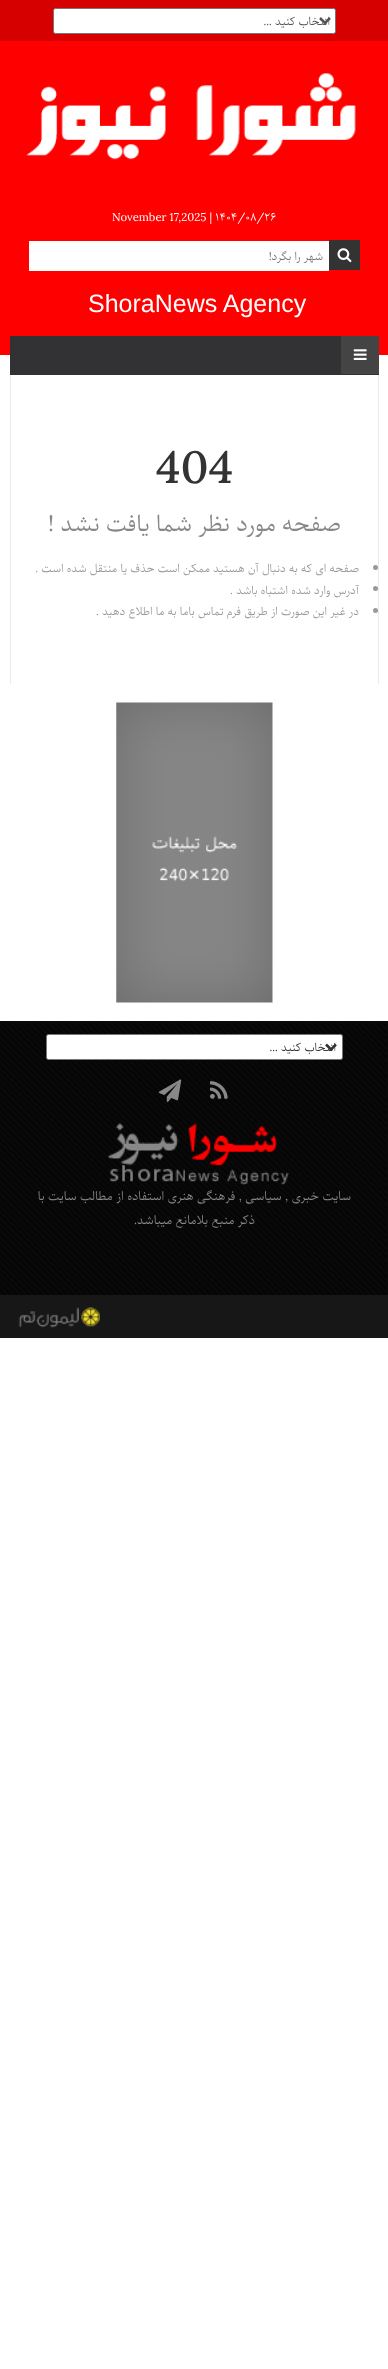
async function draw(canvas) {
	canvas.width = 388;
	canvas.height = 2369;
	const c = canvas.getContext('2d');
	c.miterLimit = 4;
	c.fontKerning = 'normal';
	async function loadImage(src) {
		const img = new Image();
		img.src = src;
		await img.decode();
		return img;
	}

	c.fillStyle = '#fff';
	c.fillRect(0, 0, 388, 2369);
	c.fillStyle = '#f00';
	c.fillRect(0, 41, 388, 314);
	c.fillStyle = '#d60000';
	c.fillRect(0, 0, 388, 41);
	c.fillStyle = '#fff';
	c.beginPath();
	c.roundRect(53.5, 8.5, 282, 25, 2);
	c.fill();
	c.strokeStyle = '#767676';
	c.stroke();
	c.beginPath();
	c.moveTo(320, 18);
	c.lineTo(325, 23);
	c.lineTo(330, 18);
	c.strokeStyle = '#555';
	c.lineWidth = 2.5;
	c.stroke();
	c.direction = 'rtl';
	c.font = '15px Parastoo';
	c.fillStyle = '#555';
	c.fillText('انتخاب کنید ...', 330, 25);
	c.drawImage(await loadImage('img1.png'), 26, 73, 330, 87);
	c.direction = 'ltr';
	c.fillStyle = '#fff';
	c.fillText('November 17,2025 | ۱۴۰۴/۰۸/۲۶', 112, 221);
	c.fillStyle = '#333';
	c.fillRect(329, 240, 31, 30);
	c.drawImage(await loadImage('img2.png'), 337, 248, 15, 15);
	c.fillStyle = '#fff';
	c.fillRect(29, 241, 300, 30);
	c.direction = 'rtl';
	c.fillStyle = '#757575';
	c.fillText('شهر را بگرد!', 323, 260);
	c.direction = 'ltr';
	c.font = '25px Liberation Sans';
	c.fillStyle = '#fff';
	c.fillText('ShoraNews Agency', 88, 312);
	c.fillStyle = '#ebebeb';
	c.fillRect(378, 374, 1, 310);
	c.fillRect(10, 374, 1, 310);
	c.fillStyle = '#323234';
	c.beginPath();
	c.moveTo(10, 374);
	c.lineTo(10, 375);
	c.lineTo(379, 375);
	c.lineTo(379, 338);
	c.lineTo(379, 374);
	c.closePath();
	c.fill();
	c.fillRect(10, 336, 331, 38);
	c.fillStyle = '#444';
	c.fillRect(341, 336, 38, 38);
	c.drawImage(await loadImage('img3.png'), 353, 349, 14, 11);
	c.font = '500 60px Parastoo';
	c.fillStyle = '#333';
	c.fillText('404', 156, 483);
	c.direction = 'rtl';
	c.font = '30px Parastoo';
	c.fillStyle = '#888';
	c.fillText('صفحه مورد نظر شما یافت نشد !', 341, 531);
	c.fillStyle = '#999';
	c.beginPath();
	c.arc(375.5, 567.5, 2.5, 0, 2 * Math.PI);
	c.fill();
	c.font = '15px Parastoo';
	c.fillText('صفحه ای که به دنبال آن هستید ممکن است حذف یا منتقل شده است .', 359, 572);
	c.beginPath();
	c.arc(375.5, 588.5, 2.5, 0, 2 * Math.PI);
	c.fill();
	c.fillText('آدرس وارد شده اشتباه باشد .', 359, 594);
	c.beginPath();
	c.arc(375.5, 610.5, 2.5, 0, 2 * Math.PI);
	c.fill();
	c.fillText('در غیر این صورت از طریق فرم تماس باما به ما اطلاع دهید .', 359, 615);
	c.drawImage(await loadImage('img4.png'), 116, 702, 157, 301);
	c.fillStyle = '#090909';
	c.fillRect(0, 1021, 388, 274);
	c.drawImage(await loadImage('img5.png'), 0, 1023, 387, 272);
	c.fillStyle = '#fff';
	c.beginPath();
	c.roundRect(46.5, 1034.5, 296, 25, 2);
	c.fill();
	c.strokeStyle = '#767676';
	c.lineWidth = 1;
	c.stroke();
	c.beginPath();
	c.moveTo(326, 1044.5);
	c.lineTo(331, 1049.5);
	c.lineTo(336, 1044.5);
	c.strokeStyle = '#333';
	c.lineWidth = 2.5;
	c.stroke();
	c.fillStyle = '#333';
	c.fillText('انتخاب کنید ...', 336, 1051);
	c.drawImage(await loadImage('img6.png'), 210, 1081, 18, 18);
	c.drawImage(await loadImage('img7.png'), 158, 1079, 24, 23);
	c.drawImage(await loadImage('img8.png'), 107, 1122, 182, 63);
	c.font = '16.25px Parastoo';
	c.fillStyle = '#888';
	c.fillText('سایت خبری , سیاسی , فرهنگی هنری استفاده از مطالب سایت با', 351, 1200);
	c.fillText('ذکر منبع بلامانع میباشد.', 255, 1224);
	c.fillStyle = '#171717';
	c.fillRect(0, 1295, 388, 43);
	c.drawImage(await loadImage('img9.png'), 18, 1307, 82, 21);
}

draw(document.querySelector('canvas'));
